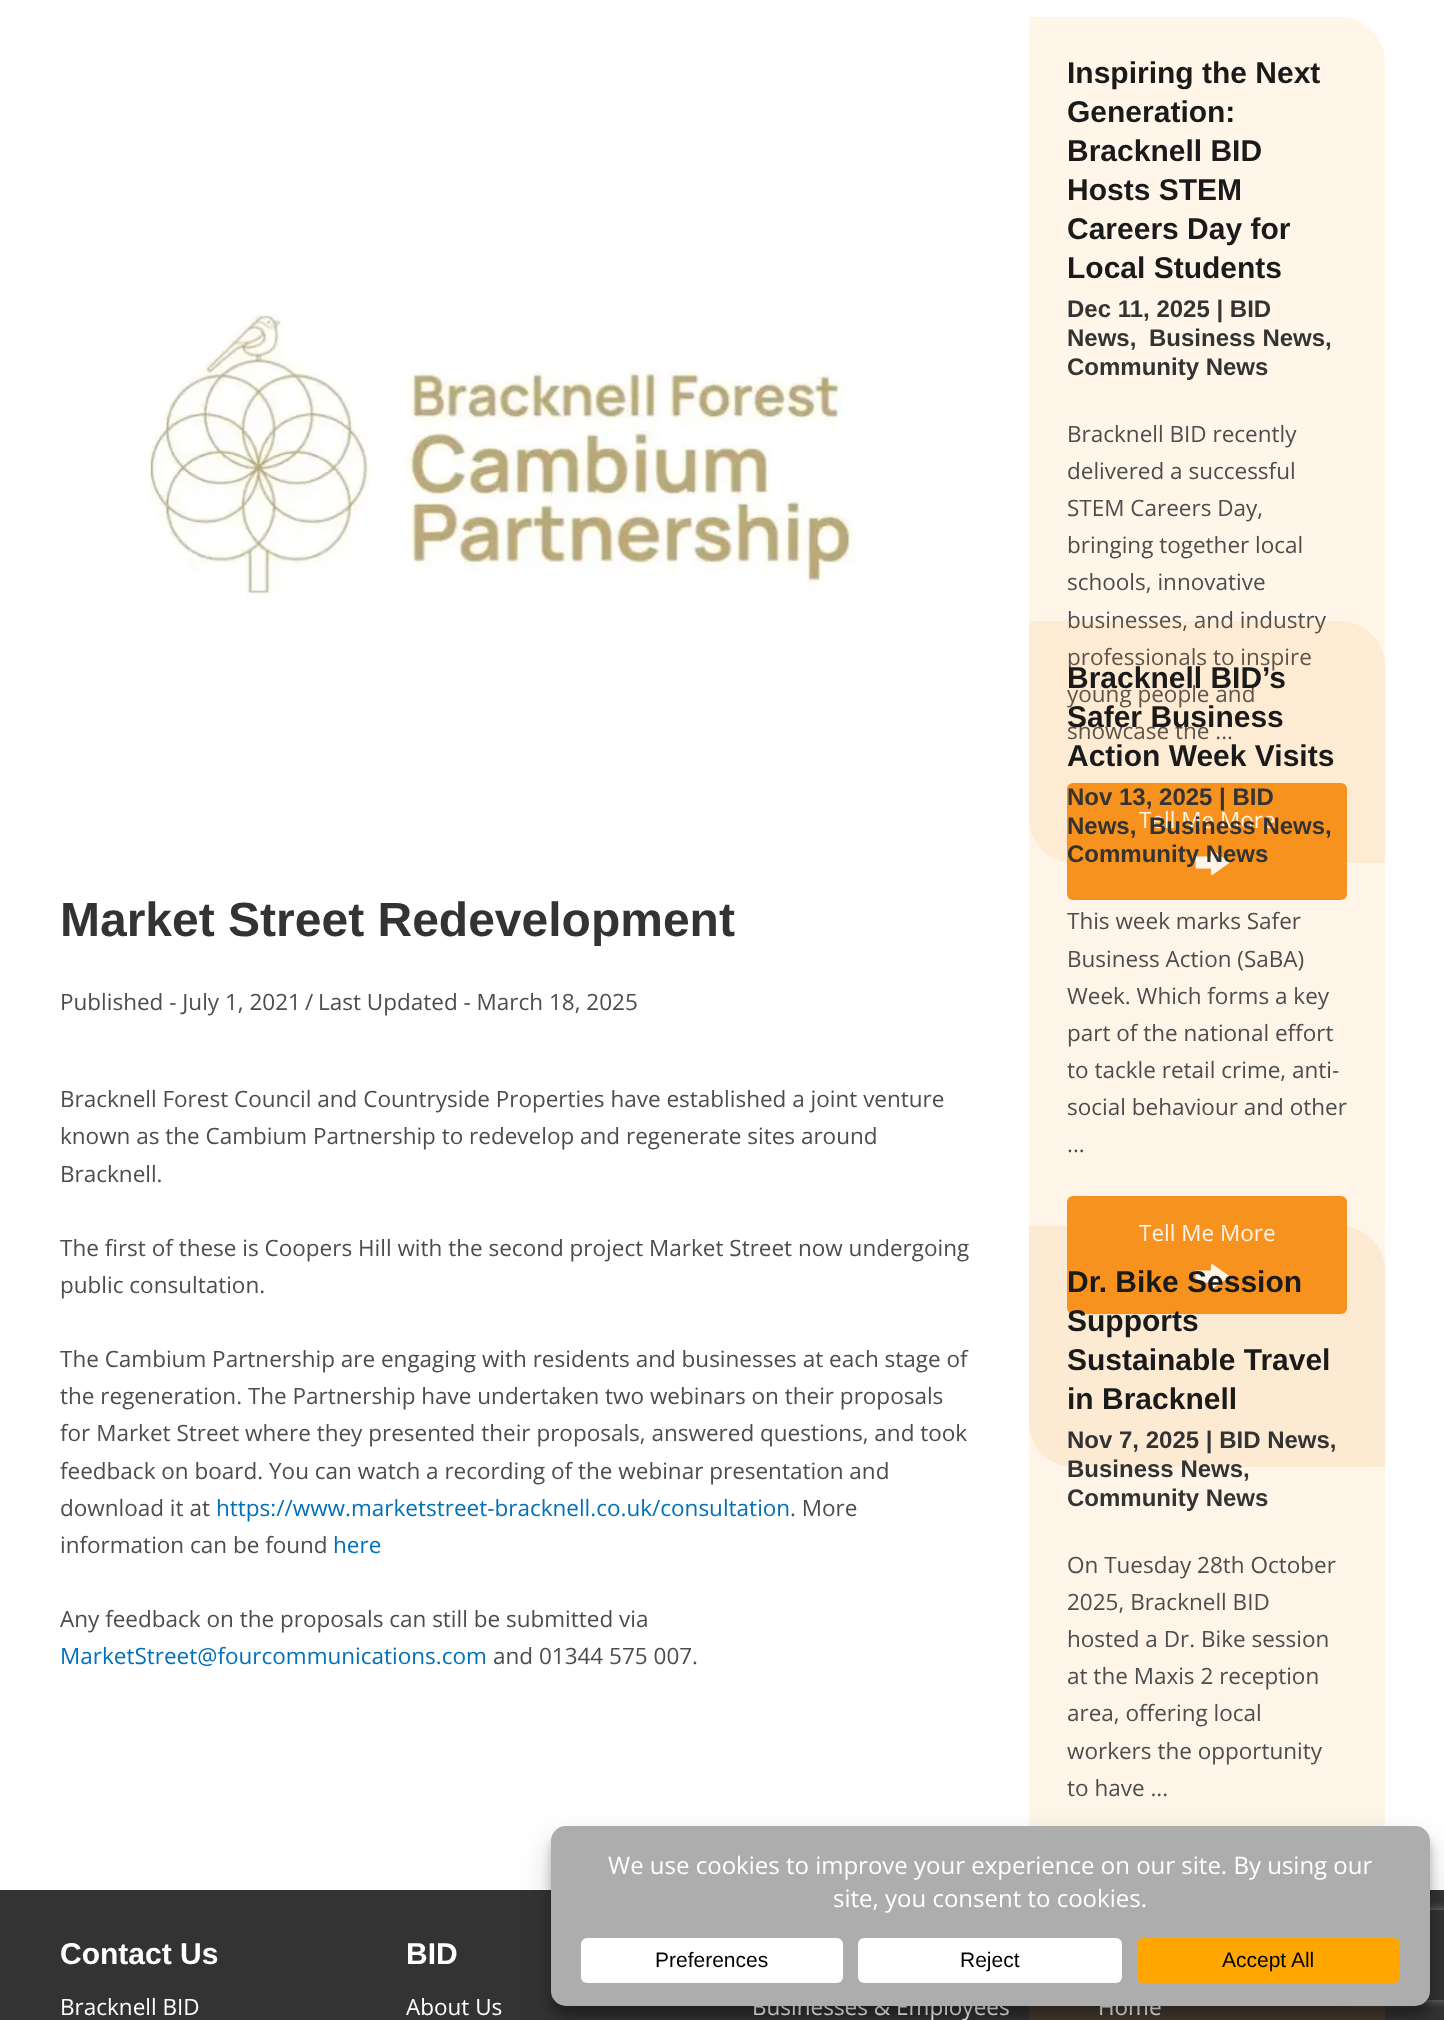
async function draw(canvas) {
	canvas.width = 1444;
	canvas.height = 2020;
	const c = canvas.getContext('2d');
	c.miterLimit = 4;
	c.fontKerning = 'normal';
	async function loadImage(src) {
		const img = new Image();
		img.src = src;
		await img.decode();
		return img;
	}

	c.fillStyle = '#fff';
	c.fillRect(0, 0, 1444, 2020);
	c.drawImage(await loadImage('img1.png'), 144, 311, 714, 289);
	c.font = 'bold 48px Liberation Sans';
	c.fillStyle = '#333';
	c.fillText('Market Street Redevelopment', 60, 936);
	c.font = '22.5px Open Sans';
	c.fillStyle = '#4d4d4d';
	for (const [text, x, y] of [
		['Published - July 1, 2021', 60, 1010],
		['/', 305, 1010],
		['Last Updated - March 18, 2025', 318, 1010],
		['Bracknell Forest Council and Countryside Properties have established a joint venture', 60, 1107],
		['known as the Cambium Partnership to redevelop and regenerate sites around', 60, 1144],
		['Bracknell.', 60, 1182],
		['The first of these is Coopers Hill with the second project Market Street now undergoing', 60, 1256],
		['public consultation.', 60, 1293],
		['The Cambium Partnership are engaging with residents and businesses at each stage of', 60, 1367],
		['the regeneration. The Partnership have undertaken two webinars on their proposals', 60, 1404],
		['for Market Street where they presented their proposals, answered questions, and took', 60, 1441],
		['feedback on board. You can watch a recording of the webinar presentation and', 60, 1479],
		['download it at', 60, 1516],
	]) {
		c.fillText(text, x, y);
	}
	c.fillStyle = '#0170b9';
	c.fillText('https://www.marketstreet-bracknell.co.uk/consultation', 216, 1516);
	c.fillStyle = '#4d4d4d';
	c.fillText('. More', 790, 1516);
	c.fillText('information can be found', 60, 1553);
	c.fillStyle = '#0170b9';
	c.fillText('here', 333, 1553);
	c.fillStyle = '#4d4d4d';
	c.fillText('Any feedback on the proposals can still be submitted via', 60, 1627);
	c.fillStyle = '#0170b9';
	c.fillText('MarketStreet@fourcommunications.com', 60, 1664);
	c.fillStyle = '#4d4d4d';
	c.fillText('and 01344 575 007.', 493, 1664);
	c.fillStyle = '#fff5e9';
	c.beginPath();
	c.roundRect(1029, 17, 356, 846, [0, 45, 0, 45]);
	c.fill();
	c.font = 'bold 30px Liberation Sans';
	c.fillStyle = '#1a1a1a';
	for (const [text, x, y] of [
		['Inspiring the Next', 1067, 83],
		['Generation:', 1067, 122],
		['Bracknell BID', 1067, 161],
		['Hosts STEM', 1067, 200],
		['Careers Day for', 1067, 239],
		['Local Students', 1067, 278],
	]) {
		c.fillText(text, x, y);
	}
	c.font = 'bold 24px Liberation Sans';
	c.fillStyle = '#333';
	for (const [text, x, y] of [
		['Dec 11, 2025 | BID', 1067, 317],
		['News,', 1067, 346],
		['Business News,', 1149, 346],
		['Community News', 1067, 375],
	]) {
		c.fillText(text, x, y);
	}
	c.font = '22.5px Open Sans';
	c.fillStyle = '#4d4d4d';
	for (const [text, x, y] of [
		['Bracknell BID recently', 1067, 442],
		['delivered a successful', 1067, 479],
		['STEM Careers Day,', 1067, 516],
		['bringing together local', 1067, 553],
		['schools, innovative', 1067, 590],
		['businesses, and industry', 1067, 628],
		['professionals to inspire', 1067, 665],
		['young people and', 1067, 702],
		['showcase the ...', 1067, 739],
	]) {
		c.fillText(text, x, y);
	}
	c.fillStyle = '#f6921e';
	c.beginPath();
	c.roundRect(1067, 783, 280, 117, 6);
	c.fill();
	c.fillStyle = '#fff';
	c.fillText('Tell Me More', 1139, 828);
	c.drawImage(await loadImage('img2.png'), 1195, 850, 35, 25);
	c.fillStyle = '#f6921e1a';
	c.beginPath();
	c.roundRect(1029, 621, 356, 846, [0, 45, 0, 45]);
	c.fill();
	c.font = 'bold 30px Liberation Sans';
	c.fillStyle = '#1a1a1a';
	for (const [text, x, y] of [
		['Bracknell BID’s', 1067, 688],
		['Safer Business', 1067, 727],
		['Action Week Visits', 1067, 766],
	]) {
		c.fillText(text, x, y);
	}
	c.font = 'bold 24px Liberation Sans';
	c.fillStyle = '#333';
	for (const [text, x, y] of [
		['Nov 13, 2025 | BID', 1067, 805],
		['News,', 1067, 834],
		['Business News,', 1149, 834],
		['Community News', 1067, 862],
	]) {
		c.fillText(text, x, y);
	}
	c.font = '22.5px Open Sans';
	c.fillStyle = '#4d4d4d';
	for (const [text, x, y] of [
		['This week marks Safer', 1067, 929],
		['Business Action (SaBA)', 1067, 967],
		['Week. Which forms a key', 1067, 1004],
		['part of the national effort', 1067, 1041],
		['to tackle retail crime, anti-', 1067, 1078],
		['social behaviour and other', 1067, 1115],
		['...', 1067, 1152],
	]) {
		c.fillText(text, x, y);
	}
	c.fillStyle = '#f6921e';
	c.beginPath();
	c.roundRect(1067, 1196, 280, 118, 6);
	c.fill();
	c.fillStyle = '#fff';
	c.fillText('Tell Me More', 1139, 1241);
	c.drawImage(await loadImage('img2.png'), 1195, 1264, 35, 25);
	c.fillStyle = '#333';
	c.fillRect(0, 1890, 1444, 130);
	c.save();
	c.beginPath();
	c.moveTo(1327, 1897);
	c.lineTo(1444, 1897);
	c.lineTo(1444, 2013);
	c.lineTo(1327, 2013);
	c.closePath();
	c.moveTo(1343, 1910);
	c.lineTo(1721, 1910);
	c.bezierCurveTo(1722.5, 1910, 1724, 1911.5, 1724, 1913);
	c.lineTo(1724, 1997);
	c.bezierCurveTo(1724, 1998.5, 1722.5, 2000, 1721, 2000);
	c.lineTo(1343, 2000);
	c.bezierCurveTo(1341.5, 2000, 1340, 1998.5, 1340, 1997);
	c.lineTo(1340, 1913);
	c.bezierCurveTo(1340, 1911.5, 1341.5, 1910, 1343, 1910);
	c.closePath();
	c.clip('evenodd');
	c.fillStyle = '#808080';
	c.filter = 'blur(4px)';
	c.beginPath();
	c.roundRect(1340, 1910, 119, 90, 3);
	c.fill();
	c.filter = 'none';
	c.restore();
	c.fillStyle = '#f6921e1a';
	c.beginPath();
	c.moveTo(1029, 1226);
	c.lineTo(1340, 1226);
	c.bezierCurveTo(1365, 1226, 1385, 1246, 1385, 1271);
	c.lineTo(1385, 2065);
	c.lineTo(1074, 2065);
	c.bezierCurveTo(1049, 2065, 1029, 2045, 1029, 2020);
	c.closePath();
	c.fill();
	c.font = 'bold 30px Liberation Sans';
	c.fillStyle = '#1a1a1a';
	for (const [text, x, y] of [
		['Dr. Bike Session', 1067, 1292],
		['Supports', 1067, 1331],
		['Sustainable Travel', 1067, 1370],
		['in Bracknell', 1067, 1409],
	]) {
		c.fillText(text, x, y);
	}
	c.font = 'bold 24px Liberation Sans';
	c.fillStyle = '#333';
	for (const [text, x, y] of [
		['Nov 7, 2025 | BID News,', 1067, 1448],
		['Business News,', 1067, 1477],
		['Community News', 1067, 1506],
	]) {
		c.fillText(text, x, y);
	}
	c.font = '22.5px Open Sans';
	c.fillStyle = '#4d4d4d';
	for (const [text, x, y] of [
		['On Tuesday 28th October', 1067, 1573],
		['2025, Bracknell BID', 1067, 1610],
		['hosted a Dr. Bike session', 1067, 1647],
		['at the Maxis 2 reception', 1067, 1684],
		['area, offering local', 1067, 1721],
		['workers the opportunity', 1067, 1759],
		['to have ...', 1067, 1796],
	]) {
		c.fillText(text, x, y);
	}
	c.font = 'bold 30px Liberation Sans';
	c.fillStyle = '#fff';
	c.fillText('Contact Us', 60, 1964);
	c.font = '22.5px Open Sans';
	c.fillText('Bracknell BID', 60, 2015);
	c.font = 'bold 30px Liberation Sans';
	c.fillText('BID', 406, 1964);
	c.font = '22.5px Open Sans';
	for (const [text, x, y] of [
		['About Us', 406, 2015],
		['Businesses & Employees', 752, 2015],
		['Home', 1098, 2015],
	]) {
		c.fillText(text, x, y);
	}
	c.fillStyle = '#0000003b';
	c.filter = 'blur(4.5px)';
	c.beginPath();
	c.roundRect(551, 1835, 879, 180, 15);
	c.fill();
	c.filter = 'none';
	c.fillStyle = '#00000030';
	c.filter = 'blur(15px)';
	c.beginPath();
	c.roundRect(551, 1841, 879, 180, 15);
	c.fill();
	c.filter = 'none';
	c.fillStyle = '#adadad';
	c.beginPath();
	c.roundRect(551, 1826, 879, 180, 15);
	c.fill();
	c.font = '24px Open Sans';
	c.fillStyle = '#fff';
	c.fillText('We use cookies to improve your experience on our site. By using our', 608, 1874);
	c.fillText('site, you consent to cookies.', 833, 1907);
	c.beginPath();
	c.roundRect(581, 1938, 262, 45, 6);
	c.fill();
	c.font = '21px Liberation Sans';
	c.fillStyle = '#000';
	c.fillText('Preferences', 655, 1967);
	c.fillStyle = '#fff';
	c.beginPath();
	c.roundRect(858, 1938, 264, 45, 6);
	c.fill();
	c.fillStyle = '#000';
	c.fillText('Reject', 960, 1967);
	c.fillStyle = '#ffa600';
	c.beginPath();
	c.roundRect(1137, 1938, 263, 45, 6);
	c.fill();
	c.fillStyle = '#000';
	c.fillText('Accept All', 1222, 1967);
}

draw(document.querySelector('canvas'));
